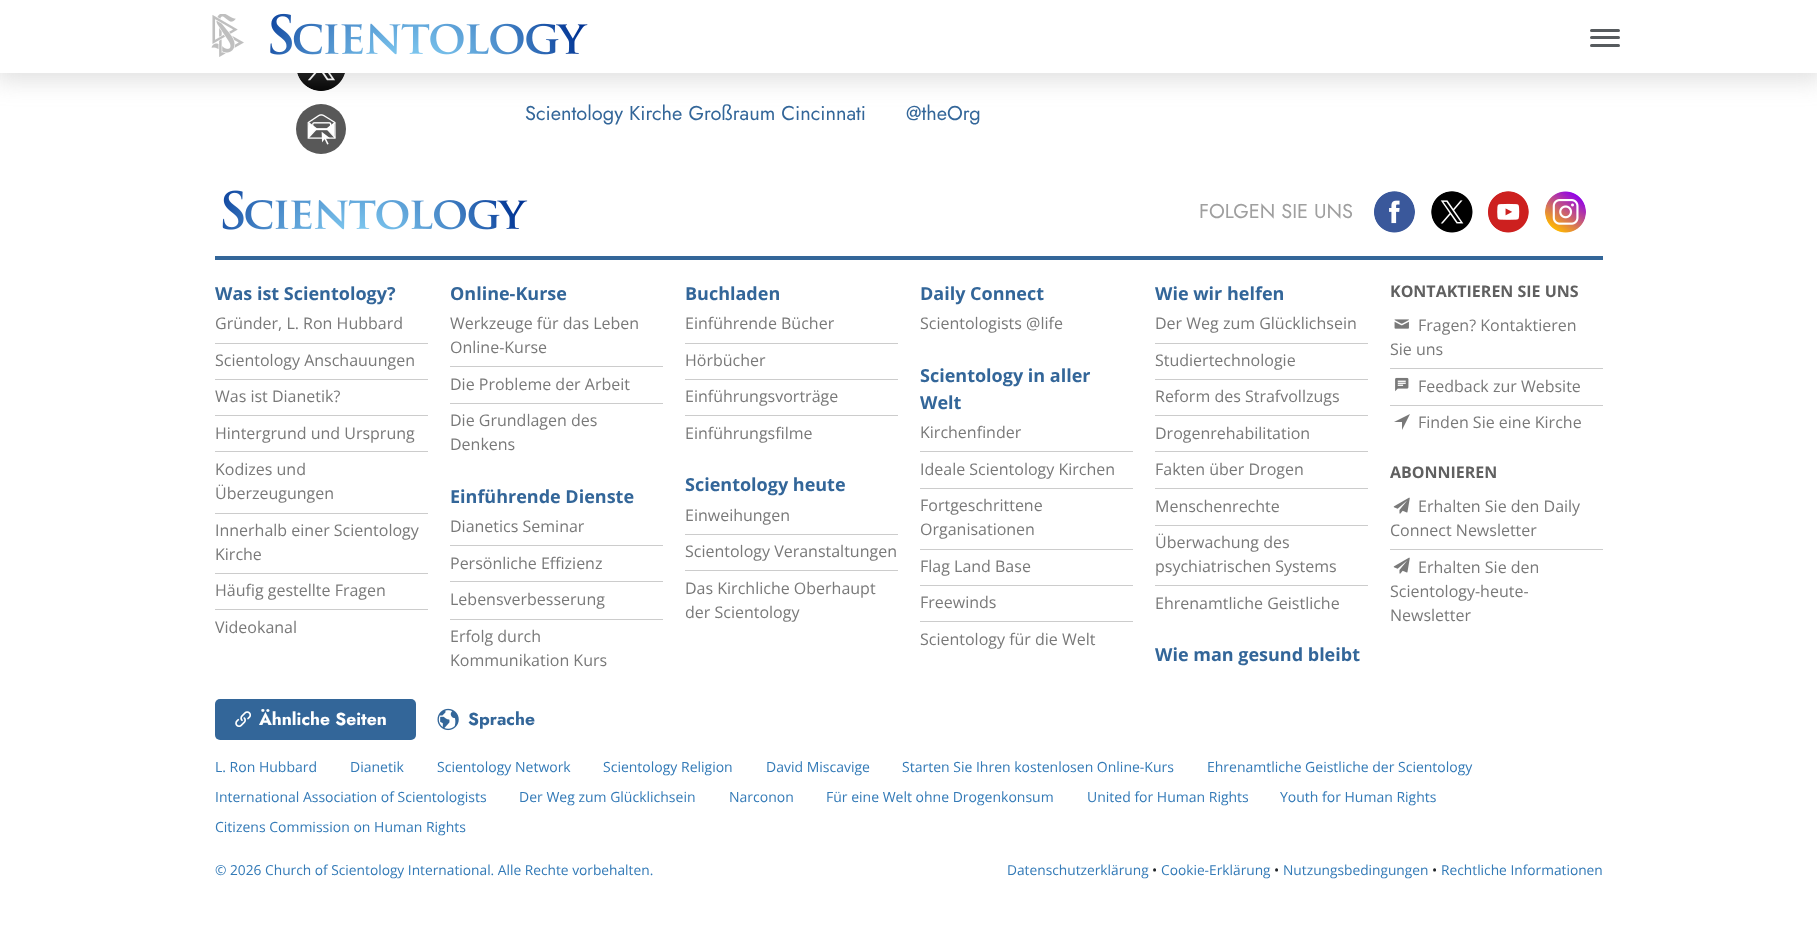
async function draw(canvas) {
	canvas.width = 1817;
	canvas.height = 930;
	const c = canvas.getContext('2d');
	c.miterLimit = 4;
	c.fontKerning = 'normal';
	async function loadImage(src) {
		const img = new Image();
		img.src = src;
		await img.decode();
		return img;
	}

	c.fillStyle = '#fff';
	c.fillRect(0, 0, 1817, 930);
	c.drawImage(await loadImage('img3.png'), 297, 73, 48, 18);
	c.fillStyle = '#585858';
	c.beginPath();
	c.arc(321, 129, 25, 0, 2 * Math.PI);
	c.fill();
	c.drawImage(await loadImage('img4.png'), 307, 114, 29, 31);
	c.fillStyle = '#9494944d';
	c.filter = 'blur(12.5px)';
	c.beginPath();
	c.rect(-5, -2, 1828, 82);
	c.fill();
	c.filter = 'none';
	c.fillStyle = '#fff';
	c.fillRect(0, 0, 1817, 73);
	c.drawImage(await loadImage('img1.png'), 211, 14, 33, 43);
	c.drawImage(await loadImage('img2.png'), 270, 13, 318, 42);
	c.fillStyle = '#575b5e';
	c.beginPath();
	c.roundRect(1590, 29, 30, 3, 1.5);
	c.fill();
	c.beginPath();
	c.roundRect(1590, 36, 30, 3, 1.5);
	c.fill();
	c.beginPath();
	c.roundRect(1590, 44, 30, 3, 1.5);
	c.fill();
	c.font = '20px Jost';
	c.fillStyle = '#369';
	c.fillText('Scientology Kirche Großraum Cincinnati', 525, 120);
	c.fillText('@theOrg', 906, 120);
	c.fillRect(215, 256, 1388, 4);
	c.drawImage(await loadImage('img5.png'), 222, 190, 306, 40);
	c.fillStyle = '#9f9f9f';
	c.fillText('FOLGEN SIE UNS', 1199, 218);
	c.drawImage(await loadImage('img6.png'), 1374, 191, 41, 42);
	c.drawImage(await loadImage('img7.png'), 1431, 191, 42, 42);
	c.drawImage(await loadImage('img8.png'), 1488, 191, 41, 42);
	c.drawImage(await loadImage('img9.png'), 1545, 191, 41, 42);
	c.font = 'bold 18px Open Sans';
	c.fillStyle = '#369';
	c.fillText('Was ist Scientology?', 215, 300);
	c.fillStyle = '#ccc';
	c.fillRect(215, 343, 213, 1);
	c.font = '16px Open Sans';
	c.fillStyle = '#797979';
	c.fillText('Gründer, L. Ron Hubbard', 215, 329);
	c.fillStyle = '#ccc';
	c.fillRect(215, 379, 213, 1);
	c.fillStyle = '#797979';
	c.fillText('Scientology Anschauungen', 215, 366);
	c.fillStyle = '#ccc';
	c.fillRect(215, 415, 213, 1);
	c.fillStyle = '#797979';
	c.fillText('Was ist Dianetik?', 215, 402);
	c.fillStyle = '#ccc';
	c.fillRect(215, 451, 213, 1);
	c.fillStyle = '#797979';
	c.fillText('Hintergrund und Ursprung', 215, 439);
	c.fillStyle = '#ccc';
	c.fillRect(215, 513, 213, 1);
	c.fillStyle = '#797979';
	c.fillText('Kodizes und', 215, 475);
	c.fillText('Überzeugungen', 215, 499);
	c.fillStyle = '#ccc';
	c.fillRect(215, 573, 213, 1);
	c.fillStyle = '#797979';
	c.fillText('Innerhalb einer Scientology', 215, 536);
	c.fillText('Kirche', 215, 560);
	c.fillStyle = '#ccc';
	c.fillRect(215, 609, 213, 1);
	c.fillStyle = '#797979';
	c.fillText('Häufig gestellte Fragen', 215, 596);
	c.fillText('Videokanal', 215, 633);
	c.font = 'bold 18px Open Sans';
	c.fillStyle = '#369';
	c.fillText('Online-Kurse', 450, 300);
	c.fillStyle = '#ccc';
	c.fillRect(450, 366, 213, 1);
	c.font = '16px Open Sans';
	c.fillStyle = '#797979';
	c.fillText('Werkzeuge für das Leben', 450, 329);
	c.fillText('Online-Kurse', 450, 353);
	c.fillStyle = '#ccc';
	c.fillRect(450, 403, 213, 1);
	c.fillStyle = '#797979';
	for (const [text, x, y] of [
		['Die Probleme der Arbeit', 450, 390],
		['Die Grundlagen des', 450, 426],
		['Denkens', 450, 450],
	]) {
		c.fillText(text, x, y);
	}
	c.font = 'bold 18px Open Sans';
	c.fillStyle = '#369';
	c.fillText('Einführende Dienste', 450, 503);
	c.fillStyle = '#ccc';
	c.fillRect(450, 545, 213, 1);
	c.font = '16px Open Sans';
	c.fillStyle = '#797979';
	c.fillText('Dianetics Seminar', 450, 532);
	c.fillStyle = '#ccc';
	c.fillRect(450, 581, 213, 1);
	c.fillStyle = '#797979';
	c.fillText('Persönliche Effizienz', 450, 569);
	c.fillStyle = '#ccc';
	c.fillRect(450, 619, 213, 1);
	c.fillStyle = '#797979';
	for (const [text, x, y] of [
		['Lebensverbesserung', 450, 605],
		['Erfolg durch', 450, 642],
		['Kommunikation Kurs', 450, 666],
	]) {
		c.fillText(text, x, y);
	}
	c.font = 'bold 18px Open Sans';
	c.fillStyle = '#369';
	c.fillText('Buchladen', 685, 300);
	c.fillStyle = '#ccc';
	c.fillRect(685, 343, 213, 1);
	c.font = '16px Open Sans';
	c.fillStyle = '#797979';
	c.fillText('Einführende Bücher', 685, 329);
	c.fillStyle = '#ccc';
	c.fillRect(685, 379, 213, 1);
	c.fillStyle = '#797979';
	c.fillText('Hörbücher', 685, 366);
	c.fillStyle = '#ccc';
	c.fillRect(685, 415, 213, 1);
	c.fillStyle = '#797979';
	c.fillText('Einführungsvorträge', 685, 402);
	c.fillText('Einführungsfilme', 685, 439);
	c.font = 'bold 18px Open Sans';
	c.fillStyle = '#369';
	c.fillText('Scientology heute', 685, 491);
	c.fillStyle = '#ccc';
	c.fillRect(685, 534, 213, 1);
	c.font = '16px Open Sans';
	c.fillStyle = '#797979';
	c.fillText('Einweihungen', 685, 521);
	c.fillStyle = '#ccc';
	c.fillRect(685, 570, 213, 1);
	c.fillStyle = '#797979';
	for (const [text, x, y] of [
		['Scientology Veranstaltungen', 685, 557],
		['Das Kirchliche Oberhaupt', 685, 594],
		['der Scientology', 685, 618],
	]) {
		c.fillText(text, x, y);
	}
	c.font = 'bold 18px Open Sans';
	c.fillStyle = '#369';
	c.fillText('Daily Connect', 920, 300);
	c.font = '16px Open Sans';
	c.fillStyle = '#797979';
	c.fillText('Scientologists @life', 920, 329);
	c.font = 'bold 18px Open Sans';
	c.fillStyle = '#369';
	c.fillText('Scientology in aller', 920, 382);
	c.fillText('Welt', 920, 409);
	c.fillStyle = '#ccc';
	c.fillRect(920, 451, 213, 1);
	c.font = '16px Open Sans';
	c.fillStyle = '#797979';
	c.fillText('Kirchenfinder', 920, 438);
	c.fillStyle = '#ccc';
	c.fillRect(920, 488, 213, 1);
	c.fillStyle = '#797979';
	c.fillText('Ideale Scientology Kirchen', 920, 475);
	c.fillStyle = '#ccc';
	c.fillRect(920, 549, 213, 1);
	c.fillStyle = '#797979';
	c.fillText('Fortgeschrittene', 920, 511);
	c.fillText('Organisationen', 920, 535);
	c.fillStyle = '#ccc';
	c.fillRect(920, 585, 213, 1);
	c.fillStyle = '#797979';
	c.fillText('Flag Land Base', 920, 572);
	c.fillStyle = '#ccc';
	c.fillRect(920, 621, 213, 1);
	c.fillStyle = '#797979';
	c.fillText('Freewinds', 920, 608);
	c.fillText('Scientology für die Welt', 920, 645);
	c.font = 'bold 18px Open Sans';
	c.fillStyle = '#369';
	c.fillText('Wie wir helfen', 1155, 300);
	c.fillStyle = '#ccc';
	c.fillRect(1155, 343, 213, 1);
	c.font = '16px Open Sans';
	c.fillStyle = '#797979';
	c.fillText('Der Weg zum Glücklichsein', 1155, 329);
	c.fillStyle = '#ccc';
	c.fillRect(1155, 379, 213, 1);
	c.fillStyle = '#797979';
	c.fillText('Studiertechnologie', 1155, 366);
	c.fillStyle = '#ccc';
	c.fillRect(1155, 415, 213, 1);
	c.fillStyle = '#797979';
	c.fillText('Reform des Strafvollzugs', 1155, 402);
	c.fillStyle = '#ccc';
	c.fillRect(1155, 451, 213, 1);
	c.fillStyle = '#797979';
	c.fillText('Drogenrehabilitation', 1155, 439);
	c.fillStyle = '#ccc';
	c.fillRect(1155, 488, 213, 1);
	c.fillStyle = '#797979';
	c.fillText('Fakten über Drogen', 1155, 475);
	c.fillStyle = '#ccc';
	c.fillRect(1155, 525, 213, 1);
	c.fillStyle = '#797979';
	c.fillText('Menschenrechte', 1155, 512);
	c.fillStyle = '#ccc';
	c.fillRect(1155, 585, 213, 1);
	c.fillStyle = '#797979';
	for (const [text, x, y] of [
		['Überwachung des', 1155, 548],
		['psychiatrischen Systems', 1155, 572],
		['Ehrenamtliche Geistliche', 1155, 609],
	]) {
		c.fillText(text, x, y);
	}
	c.font = 'bold 18px Open Sans';
	c.fillStyle = '#369';
	c.fillText('Wie man gesund bleibt', 1155, 661);
	c.font = 'bold 16px Open Sans';
	c.fillStyle = '#606060';
	c.fillText('KONTAKTIEREN SIE UNS', 1390, 297);
	c.fillStyle = '#ccc';
	c.fillRect(1390, 368, 213, 1);
	c.drawImage(await loadImage('img10.png'), 1394, 319, 15, 10);
	c.font = '16px Open Sans';
	c.fillStyle = '#797979';
	c.fillText('Fragen? Kontaktieren', 1418, 331);
	c.fillText('Sie uns', 1390, 355);
	c.fillStyle = '#ccc';
	c.fillRect(1390, 405, 213, 1);
	c.drawImage(await loadImage('img11.png'), 1395, 377, 14, 15);
	c.fillStyle = '#797979';
	c.fillText('Feedback zur Website', 1418, 392);
	c.beginPath();
	c.moveTo(1402, 430);
	c.lineTo(1402, 422);
	c.lineTo(1394, 422);
	c.lineTo(1410, 414);
	c.closePath();
	c.fill();
	c.fillText('Finden Sie eine Kirche', 1418, 428);
	c.font = 'bold 16px Open Sans';
	c.fillStyle = '#606060';
	c.fillText('ABONNIEREN', 1390, 478);
	c.fillStyle = '#ccc';
	c.fillRect(1390, 549, 213, 1);
	c.drawImage(await loadImage('img12.png'), 1393, 497, 17, 17);
	c.font = '16px Open Sans';
	c.fillStyle = '#797979';
	c.fillText('Erhalten Sie den Daily', 1418, 512);
	c.fillText('Connect Newsletter', 1390, 536);
	c.drawImage(await loadImage('img12.png'), 1393, 557, 17, 17);
	for (const [text, x, y] of [
		['Erhalten Sie den', 1418, 573],
		['Scientology-heute-', 1390, 597],
		['Newsletter', 1390, 621],
	]) {
		c.fillText(text, x, y);
	}
	c.fillStyle = '#369';
	c.beginPath();
	c.roundRect(215, 699, 201, 41, 5);
	c.fill();
	c.drawImage(await loadImage('img13.png'), 235, 711, 16, 16);
	c.font = 'bold 17.5px Jost';
	c.fillStyle = '#fff';
	c.fillText('Ähnliche Seiten', 259, 725);
	c.drawImage(await loadImage('img14.png'), 437, 708, 22, 23);
	c.fillStyle = '#369';
	c.fillText('Sprache', 468, 725);
	c.font = '14px Open Sans';
	c.fillStyle = '#337ab7';
	for (const [text, x, y] of [
		['L. Ron Hubbard', 215, 772],
		['Dianetik', 350, 772],
		['Scientology Network', 437, 772],
		['Scientology Religion', 603, 772],
		['David Miscavige', 766, 772],
		['Starten Sie Ihren kostenlosen Online-Kurs', 902, 772],
		['Ehrenamtliche Geistliche der Scientology', 1207, 772],
		['International Association of Scientologists', 215, 802],
		['Der Weg zum Glücklichsein', 519, 802],
		['Narconon', 729, 802],
		['Für eine Welt ohne Drogenkonsum', 826, 802],
		['United for Human Rights', 1087, 802],
		['Youth for Human Rights', 1280, 802],
		['Citizens Commission on Human Rights', 215, 832],
	]) {
		c.fillText(text, x, y);
	}
	c.font = '13.75px Open Sans';
	c.fillText('© 2026 Church of Scientology International. Alle Rechte vorbehalten.', 215, 875);
	c.fillText('Datenschutzerklärung', 1007, 875);
	c.fillStyle = '#212529';
	c.fillText('•', 1152, 875);
	c.fillStyle = '#337ab7';
	c.fillText('Cookie-Erklärung', 1161, 875);
	c.fillStyle = '#212529';
	c.fillText('•', 1274, 875);
	c.fillStyle = '#337ab7';
	c.fillText('Nutzungsbedingungen', 1283, 875);
	c.fillStyle = '#212529';
	c.fillText('•', 1432, 875);
	c.fillStyle = '#337ab7';
	c.fillText('Rechtliche Informationen', 1441, 875);
}

draw(document.querySelector('canvas'));
